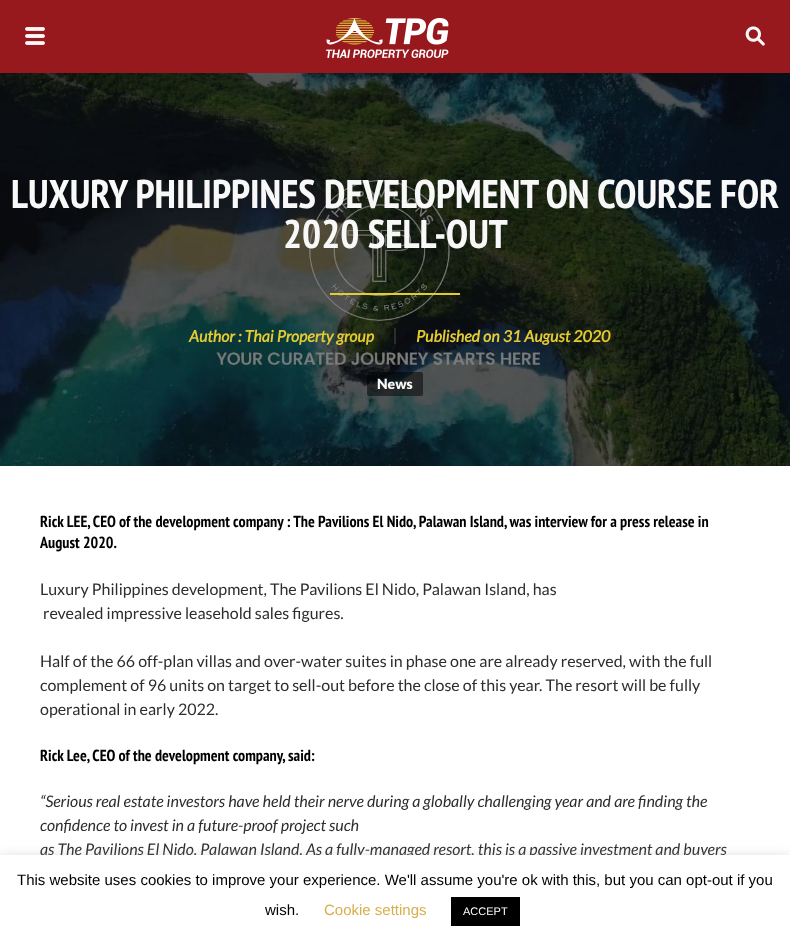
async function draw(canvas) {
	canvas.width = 790;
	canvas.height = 943;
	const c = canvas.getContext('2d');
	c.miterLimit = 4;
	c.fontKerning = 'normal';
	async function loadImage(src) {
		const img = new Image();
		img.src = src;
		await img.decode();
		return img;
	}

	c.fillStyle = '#fff';
	c.fillRect(0, 0, 790, 943);
	c.fillStyle = '#97191e';
	c.fillRect(0, 0, 790, 73);
	c.drawImage(await loadImage('img1.png'), 25, 27, 20, 18);
	c.drawImage(await loadImage('img2.png'), 326, 18, 123, 40);
	c.drawImage(await loadImage('img3.png'), 745, 26, 20, 20);
	c.drawImage(await loadImage('img4.png'), 0, 73, 790, 393);
	c.font = 'bold 40px PT Sans Narrow';
	c.fillStyle = '#f8f8f8';
	c.fillText('LUXURY PHILIPPINES DEVELOPMENT ON COURSE FOR', 11, 208);
	c.fillText('2020 SELL-OUT', 283, 248);
	c.fillStyle = '#e5cb32';
	c.fillRect(330, 293, 130, 2);
	c.font = 'italic bold 16px Lato';
	c.fillText('Author : Thai Property group', 189, 342);
	c.fillStyle = '#2d2d2d';
	c.fillRect(394, 328, 2, 16);
	c.fillStyle = '#e5cb32';
	c.fillText('Published on 31 August 2020', 416, 342);
	c.fillStyle = '#00000080';
	c.beginPath();
	c.roundRect(367, 372, 56, 24, 2);
	c.fill();
	c.font = '900 14px Lato';
	c.fillStyle = '#f8f8f8';
	c.fillText('News', 377, 389);
	c.font = 'bold 16px PT Sans Narrow';
	c.fillStyle = '#000';
	c.fillText('Rick LEE, CEO of the development company : The Pavilions El Nido, Palawan Island, was interview for a press release in', 40, 527);
	c.fillText('August 2020.', 40, 548);
	c.font = '16px Lato';
	c.fillStyle = '#2d2d2d';
	for (const [text, x, y] of [
		['Luxury Philippines development, The Pavilions El Nido, Palawan Island, has', 40, 595],
		['revealed impressive leasehold sales figures.', 43, 619],
		['Half of the 66 off-plan villas and over-water suites in phase one are already reserved, with the full', 40, 667],
		['complement of 96 units on target to sell-out before the close of this year. The resort will be fully', 40, 691],
		['operational in early 2022.', 40, 715],
	]) {
		c.fillText(text, x, y);
	}
	c.font = 'bold 16px PT Sans Narrow';
	c.fillStyle = '#000';
	c.fillText('Rick Lee, CEO of the development company, said:', 40, 761);
	c.font = 'italic 16px Lato';
	c.fillStyle = '#2d2d2d';
	for (const [text, x, y] of [
		['“Serious real estate investors have held their nerve during a globally challenging year and are finding the', 40, 807],
		['confidence to invest in a future-proof project such', 40, 831],
		['as The Pavilions El Nido, Palawan Island. As a fully-managed resort, this is a passive investment and buyers', 40, 855],
	]) {
		c.fillText(text, x, y);
	}
	c.fillStyle = '#acabab4d';
	c.filter = 'blur(5px)';
	c.beginPath();
	c.rect(0, 854, 790, 88);
	c.fill();
	c.filter = 'none';
	c.fillStyle = '#fff';
	c.fillRect(0, 855, 790, 88);
	c.font = '15px Liberation Sans';
	c.fillStyle = '#000';
	c.fillText('This website uses cookies to improve your experience. We\'ll assume you\'re ok with this, but you can opt-out if you', 17, 885);
	c.fillText('wish.', 265, 915);
	c.fillStyle = '#d8af4e';
	c.fillText('Cookie settings', 324, 915);
	c.fillStyle = '#000';
	c.fillRect(451, 897, 69, 29);
	c.font = '11px Liberation Sans';
	c.fillStyle = '#fff';
	c.fillText('ACCEPT', 463, 915);
}

draw(document.querySelector('canvas'));
